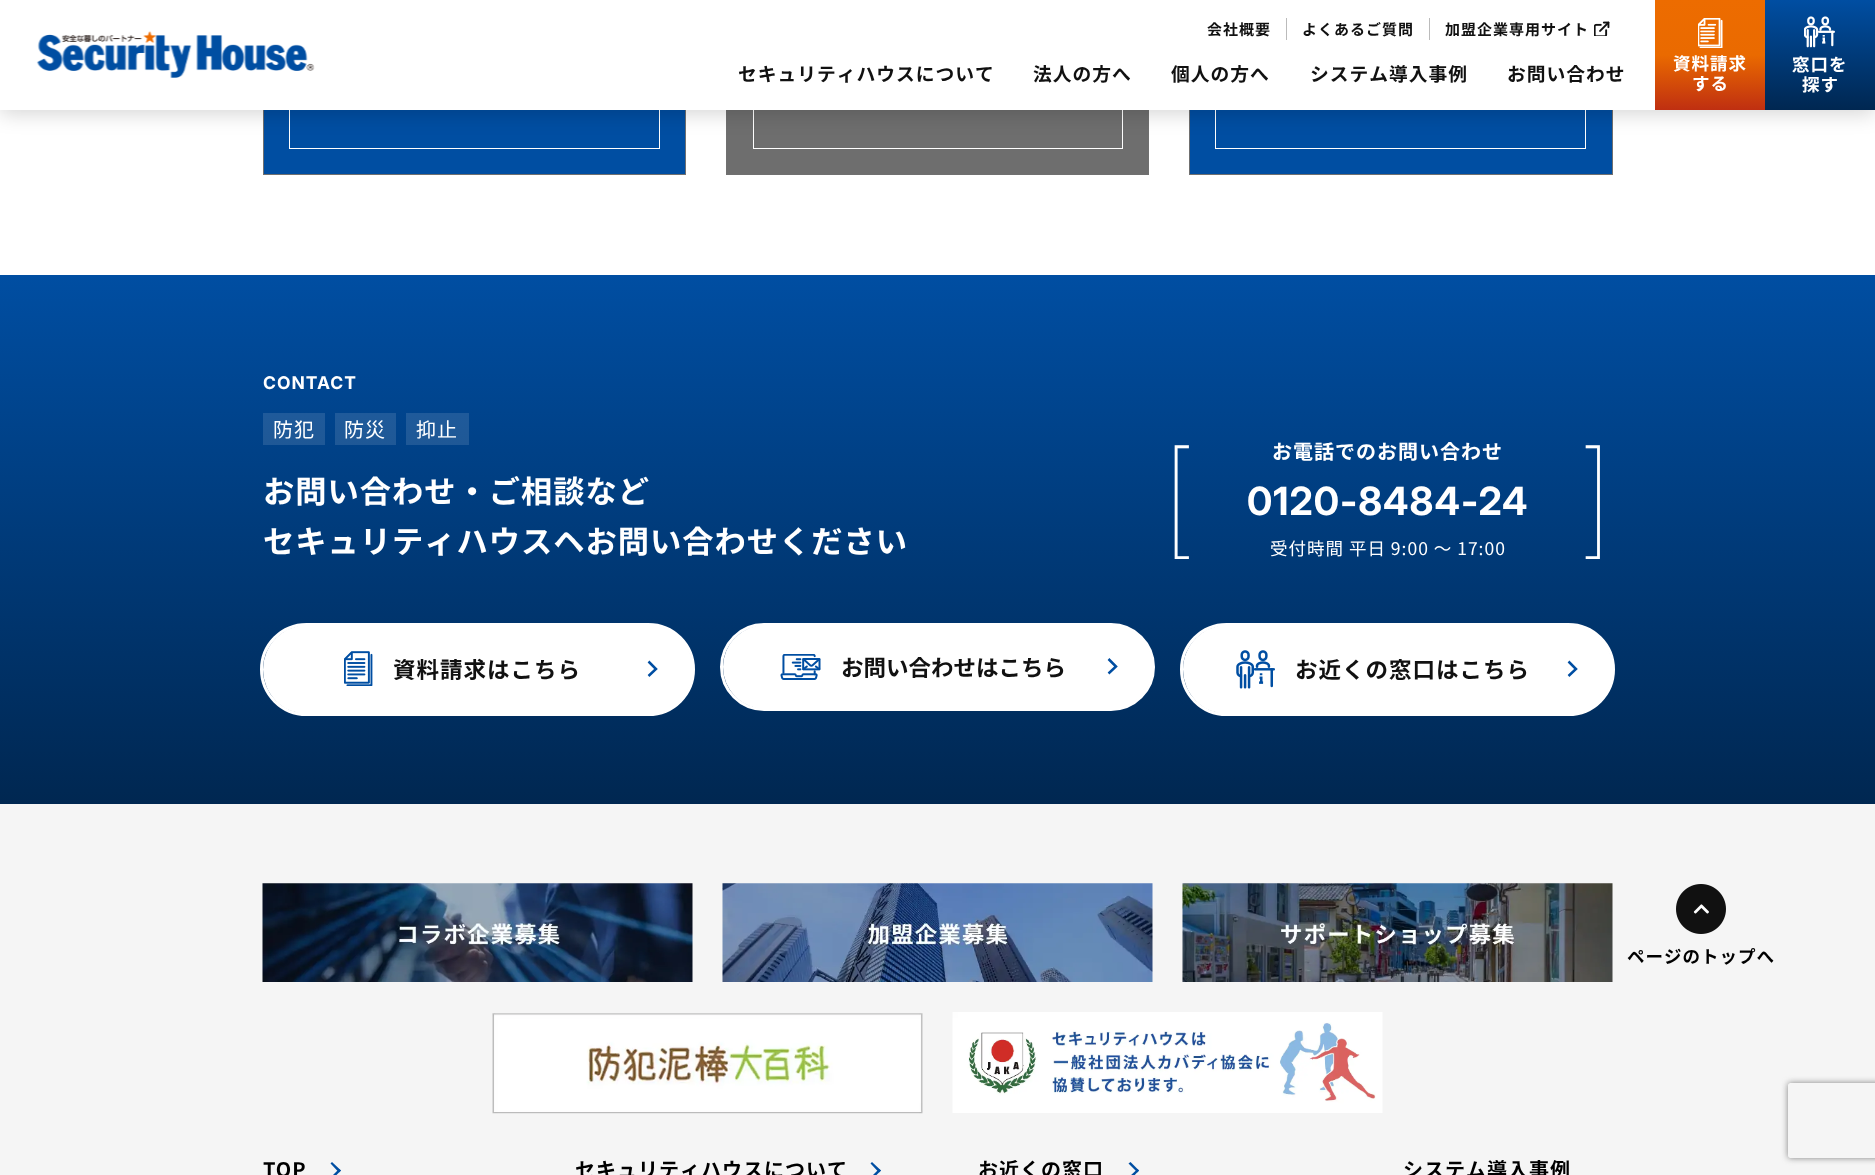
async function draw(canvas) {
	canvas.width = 1875;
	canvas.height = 1175;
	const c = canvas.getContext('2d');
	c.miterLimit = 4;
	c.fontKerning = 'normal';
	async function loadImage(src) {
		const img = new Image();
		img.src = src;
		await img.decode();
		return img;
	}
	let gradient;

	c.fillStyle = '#fff';
	c.fillRect(0, 0, 1875, 1175);
	c.fillStyle = '#004ea2';
	c.fillRect(264, 110, 421, 64);
	c.strokeStyle = '#707070';
	c.strokeRect(263.5, 13.5, 422, 161);
	c.strokeStyle = '#fff';
	c.strokeRect(289.5, 39.5, 370, 109);
	c.fillStyle = '#6e6e6e';
	c.fillRect(727, 110, 421, 64);
	c.strokeStyle = '#707070';
	c.strokeRect(726.5, 13.5, 422, 161);
	c.strokeStyle = '#fff';
	c.strokeRect(753.5, 39.5, 369, 109);
	c.fillStyle = '#004ea2';
	c.fillRect(1190, 110, 422, 64);
	c.strokeStyle = '#707070';
	c.strokeRect(1189.5, 13.5, 423, 161);
	c.strokeStyle = '#fff';
	c.strokeRect(1215.5, 39.5, 370, 109);
	c.fillStyle = '#00000029';
	c.filter = 'blur(10px)';
	c.beginPath();
	c.rect(0, 4, 1875, 110);
	c.fill();
	c.filter = 'none';
	c.fillStyle = '#fff';
	c.fillRect(0, 0, 1655, 110);
	c.drawImage(await loadImage('img1.png'), 36, 31, 279, 47);
	c.fillStyle = '#bbb';
	c.fillRect(1286, 18, 1, 22);
	c.letterSpacing = '1px';
	c.font = 'bold 15px Noto Sans JP';
	c.fillStyle = '#111';
	c.fillText('会社概要', 1207, 35);
	c.fillStyle = '#bbb';
	c.fillRect(1429, 18, 1, 22);
	c.fillStyle = '#111';
	c.fillText('よくあるご質問', 1302, 35);
	c.fillText('加盟企業専用サイト', 1445, 35);
	c.drawImage(await loadImage('img2.png'), 1594, 21, 16, 15);
	c.font = 'bold 18.75px Noto Sans JP';
	for (const [text, x, y] of [
		['セキュリティハウスについて', 738, 81],
		['法人の方へ', 1033, 81],
		['個人の方へ', 1171, 81],
		['システム導入事例', 1310, 81],
		['お問い合わせ', 1507, 81],
	]) {
		c.fillText(text, x, y);
	}
	gradient = c.createLinearGradient(1710, 0, 1710, 110);
	gradient.addColorStop(0, '#ed6c00');
	gradient.addColorStop(0.5, '#ea6a00');
	gradient.addColorStop(1, '#bf2f11');
	c.fillStyle = gradient;
	c.fillRect(1655, 0, 110, 110);
	c.drawImage(await loadImage('img3.png'), 1698, 18, 25, 30);
	c.font = 'bold 17.5px Noto Sans JP';
	c.fillStyle = '#fff';
	c.fillText('資料請求', 1673, 70);
	c.fillText('する', 1692, 90);
	gradient = c.createLinearGradient(1820, 0, 1820, 110);
	gradient.addColorStop(0, '#004ea2');
	gradient.addColorStop(1, '#002751');
	c.fillStyle = gradient;
	c.fillRect(1765, 0, 110, 110);
	c.drawImage(await loadImage('img4.png'), 1804, 16, 31, 32);
	c.fillStyle = '#fff';
	c.fillText('窓口を', 1792, 71);
	c.fillText('探す', 1802, 91);
	gradient = c.createLinearGradient(938, 275, 938, 804);
	gradient.addColorStop(0, '#004ea2');
	gradient.addColorStop(1, '#002751');
	c.fillStyle = gradient;
	c.fillRect(0, 275, 1875, 529);
	gradient = c.createLinearGradient(938, 275, 938, 804);
	gradient.addColorStop(0, '#1f63ad');
	gradient.addColorStop(1, '#1f4166');
	c.fillStyle = gradient;
	c.fillRect(406, 413, 63, 32);
	c.fillRect(335, 413, 61, 32);
	c.fillRect(263, 413, 62, 32);
	c.font = 'bold 17.5px Inter';
	c.fillStyle = '#fff';
	c.fillText('CONTACT', 263, 389);
	c.font = '20px Noto Sans JP';
	for (const [text, x, y] of [
		['防犯', 273, 437],
		['防災', 344, 437],
		['抑止', 416, 437],
	]) {
		c.fillText(text, x, y);
	}
	c.font = 'bold 31.25px Noto Sans JP';
	c.fillText('お問い合わせ・ご相談など', 263, 503);
	c.fillText('セキュリティハウスヘお問い合わせください', 263, 553);
	c.font = '100 125px Inter';
	c.fillText('[', 1163, 541);
	c.font = 'bold 20px Noto Sans JP';
	c.fillText('お電話でのお問い合わせ', 1272, 459);
	c.font = '100 125px Inter';
	c.fillText(']', 1580, 541);
	c.font = 'bold 38.75px "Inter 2"';
	c.fillText('0120-8484-24', 1247, 515);
	c.font = '17.5px Noto Sans JP';
	c.fillText('受付時間 平日 9:00 ～ 17:00', 1270, 555);
	c.beginPath();
	c.roundRect(261.5, 624.5, 432, 90, 45);
	c.lineWidth = 3;
	c.stroke();
	c.beginPath();
	c.roundRect(263, 625, 430, 89, 44.5);
	c.fill();
	c.drawImage(await loadImage('img5.png'), 344, 651, 29, 35);
	c.font = 'bold 22.5px Noto Sans JP';
	c.fillStyle = '#111';
	c.fillText('資料請求はこちら', 393, 678);
	c.beginPath();
	c.moveTo(648.5, 661.5);
	c.lineTo(656, 669);
	c.lineTo(648.5, 676);
	c.strokeStyle = '#004ea2';
	c.lineWidth = 2.5;
	c.stroke();
	c.beginPath();
	c.roundRect(721.5, 624.5, 432, 85, 42.5);
	c.strokeStyle = '#fff';
	c.lineWidth = 3;
	c.stroke();
	c.fillStyle = '#fff';
	c.beginPath();
	c.roundRect(723, 625, 430, 84, 42);
	c.fill();
	c.drawImage(await loadImage('img6.png'), 780, 654, 41, 26);
	c.letterSpacing = '0px';
	c.fillStyle = '#111';
	c.fillText('お問い合わせはこちら', 841, 676);
	c.beginPath();
	c.moveTo(1108.5, 659);
	c.lineTo(1116, 666.5);
	c.lineTo(1108.5, 673.5);
	c.strokeStyle = '#004ea2';
	c.lineWidth = 2.5;
	c.stroke();
	c.beginPath();
	c.roundRect(1181.5, 624.5, 432, 90, 45);
	c.strokeStyle = '#fff';
	c.lineWidth = 3;
	c.stroke();
	c.fillStyle = '#fff';
	c.beginPath();
	c.roundRect(1183, 625, 430, 89, 44.5);
	c.fill();
	c.drawImage(await loadImage('img7.png'), 1236, 650, 39, 39);
	c.letterSpacing = '1px';
	c.fillStyle = '#111';
	c.fillText('お近くの窓口はこちら', 1295, 678);
	c.beginPath();
	c.moveTo(1568.5, 661.5);
	c.lineTo(1576, 669);
	c.lineTo(1568.5, 676);
	c.strokeStyle = '#004ea2';
	c.lineWidth = 2.5;
	c.stroke();
	c.fillStyle = '#f5f5f5';
	c.fillRect(0, 804, 1875, 371);
	c.drawImage(await loadImage('img8.png'), 262, 883, 431, 99);
	c.drawImage(await loadImage('img9.png'), 722, 883, 431, 99);
	c.drawImage(await loadImage('img10.png'), 1182, 883, 431, 99);
	c.drawImage(await loadImage('img11.png'), 492, 1013, 431, 101);
	c.drawImage(await loadImage('img12.png'), 952, 1012, 431, 101);
	c.drawImage(await loadImage('img13.png'), 1676, 884, 50, 50);
	c.font = 'bold 17.5px Noto Sans JP';
	c.fillStyle = '#000';
	c.fillText('ページのトップへ', 1627, 963);
	c.font = 'bold 20px Noto Sans JP';
	c.fillText('TOP', 263, 1177);
	c.fillStyle = '#004ea2';
	c.beginPath();
	c.moveTo(332, 1162);
	c.lineTo(341, 1170.5);
	c.lineTo(339, 1172.5);
	c.lineTo(330.5, 1163.5);
	c.closePath();
	c.fill();
	c.beginPath();
	c.moveTo(339, 1169);
	c.lineTo(341, 1170.5);
	c.lineTo(332, 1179.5);
	c.lineTo(330.5, 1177.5);
	c.closePath();
	c.fill();
	c.fillStyle = '#000';
	c.fillText('セキュリティハウスについて', 575, 1177);
	c.fillStyle = '#004ea2';
	c.beginPath();
	c.moveTo(872, 1162);
	c.lineTo(881, 1170.5);
	c.lineTo(879, 1172.5);
	c.lineTo(870.5, 1163.5);
	c.closePath();
	c.fill();
	c.beginPath();
	c.moveTo(879, 1169);
	c.lineTo(881, 1170.5);
	c.lineTo(872, 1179.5);
	c.lineTo(870.5, 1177.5);
	c.closePath();
	c.fill();
	c.fillStyle = '#000';
	c.fillText('お近くの窓口', 978, 1177);
	c.fillStyle = '#004ea2';
	c.beginPath();
	c.moveTo(1130.5, 1162);
	c.lineTo(1139, 1170.5);
	c.lineTo(1137.5, 1172.5);
	c.lineTo(1128.5, 1163.5);
	c.closePath();
	c.fill();
	c.beginPath();
	c.moveTo(1137.5, 1169);
	c.lineTo(1139, 1170.5);
	c.lineTo(1130.5, 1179.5);
	c.lineTo(1128.5, 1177.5);
	c.closePath();
	c.fill();
	c.fillStyle = '#000';
	c.fillText('システム導入事例', 1403, 1177);
	c.save();
	c.beginPath();
	c.moveTo(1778, 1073);
	c.lineTo(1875, 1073);
	c.lineTo(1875, 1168);
	c.lineTo(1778, 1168);
	c.closePath();
	c.moveTo(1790.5, 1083);
	c.lineTo(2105.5, 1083);
	c.bezierCurveTo(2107, 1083, 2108, 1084, 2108, 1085.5);
	c.lineTo(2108, 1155.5);
	c.bezierCurveTo(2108, 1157, 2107, 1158, 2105.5, 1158);
	c.lineTo(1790.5, 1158);
	c.bezierCurveTo(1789, 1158, 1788, 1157, 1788, 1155.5);
	c.lineTo(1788, 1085.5);
	c.bezierCurveTo(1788, 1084, 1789, 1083, 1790.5, 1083);
	c.closePath();
	c.clip('evenodd');
	c.fillStyle = '#808080';
	c.filter = 'blur(3px)';
	c.beginPath();
	c.roundRect(1788, 1083, 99, 75, 2.5);
	c.fill();
	c.filter = 'none';
	c.restore();
}

draw(document.querySelector('canvas'));
